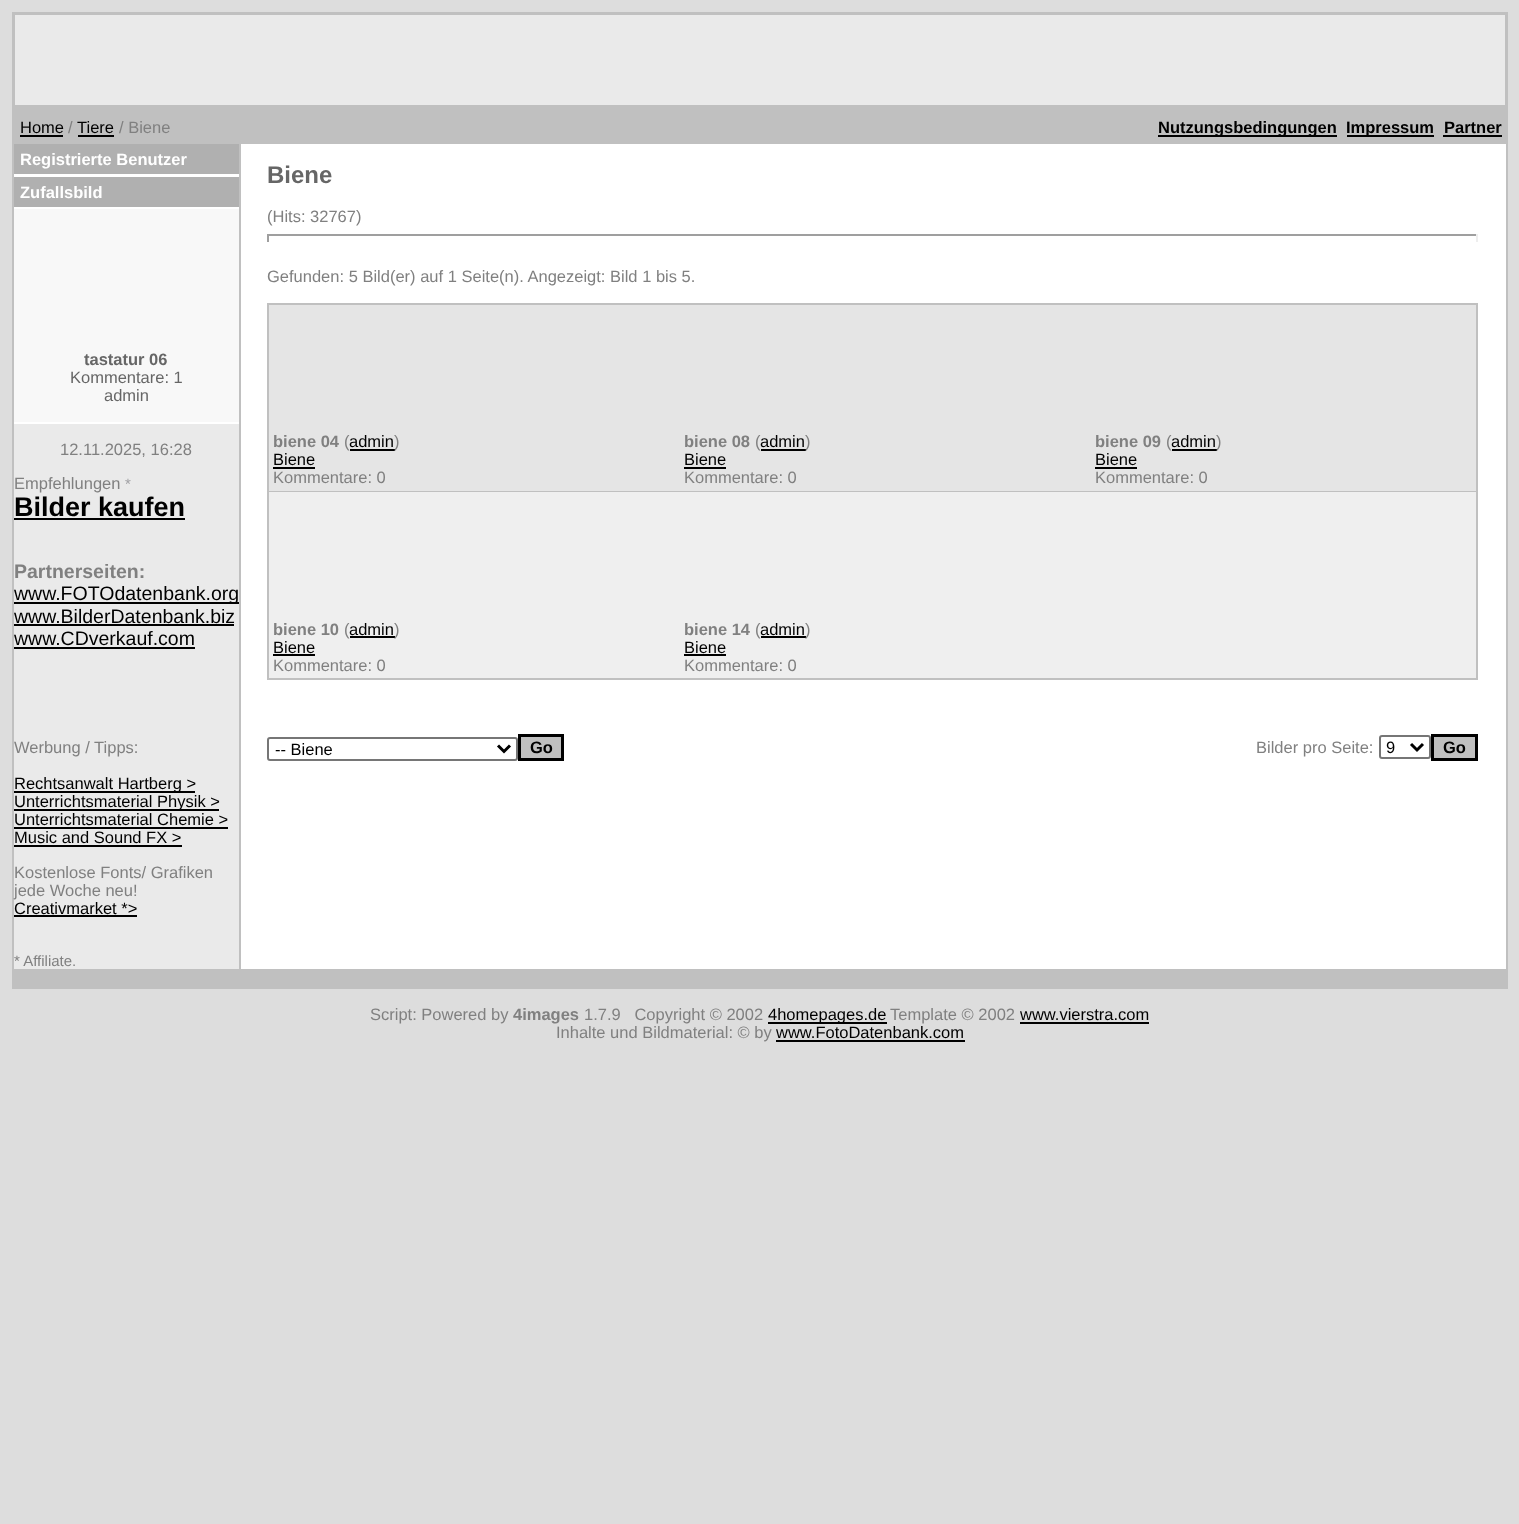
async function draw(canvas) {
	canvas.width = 1519;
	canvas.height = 1524;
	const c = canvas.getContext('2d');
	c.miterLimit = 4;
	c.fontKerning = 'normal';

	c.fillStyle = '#ddd';
	c.fillRect(0, 0, 1519, 1524);
	for (const [x, y, w, h, color] of [
		[12, 12, 1496, 977, '#c0c0c0'],
		[15, 15, 1490, 90, '#eaeaea'],
		[241, 144, 1265, 825, '#fff'],
	]) {
		c.fillStyle = color;
		c.fillRect(x, y, w, h);
	}
	c.font = '16.5px Liberation Sans';
	c.fillStyle = '#000';
	c.fillText('Home', 20, 133);
	c.fillRect(20, 135, 43, 2);
	c.fillStyle = '#808080';
	c.fillText('/', 68, 133);
	c.fillStyle = '#000';
	c.fillText('Tiere', 77, 133);
	c.fillRect(78, 135, 36, 2);
	c.fillStyle = '#808080';
	c.fillText('/ Biene', 119, 133);
	c.fillStyle = '#000';
	c.fillRect(1158, 135, 179, 2);
	c.font = 'bold 16.5px Liberation Sans';
	c.fillText('Nutzungsbedingungen', 1158, 133);
	c.fillRect(1347, 135, 87, 2);
	c.fillText('Impressum', 1346, 133);
	c.fillText('Partner', 1444, 133);
	for (const [x, y, w, h, color] of [
		[1443, 135, 59, 2, '#000'],
		[14, 424, 225, 545, '#eaeaea'],
		[14, 144, 225, 30, '#b0b0b0'],
	]) {
		c.fillStyle = color;
		c.fillRect(x, y, w, h);
	}
	c.fillStyle = '#fff';
	c.fillText('Registrierte Benutzer', 20, 165);
	c.fillRect(14, 174, 225, 3);
	c.fillStyle = '#b0b0b0';
	c.fillRect(14, 177, 225, 30);
	c.fillStyle = '#fff';
	c.fillText('Zufallsbild', 20, 198);
	c.fillRect(14, 207, 225, 2);
	c.fillStyle = '#f8f8f8';
	c.fillRect(14, 209, 225, 213);
	c.fillStyle = '#666';
	c.fillText('tastatur 06', 84, 365);
	c.font = '16.5px Liberation Sans';
	c.fillText('Kommentare: 1', 70, 383);
	c.fillText('admin', 104, 401);
	c.fillStyle = '#fff';
	c.fillRect(14, 422, 225, 2);
	c.fillStyle = '#808080';
	c.fillText('12.11.2025, 16:28', 60, 455);
	c.fillText('Empfehlungen', 14, 489);
	c.font = '15px Liberation Sans';
	c.fillStyle = '#a0a0a4';
	c.fillText('*', 125, 489);
	c.font = 'bold 27px Liberation Sans';
	c.fillStyle = '#000';
	c.fillText('Bilder kaufen', 14, 516);
	c.fillRect(14, 518, 171, 2);
	c.font = 'bold 19.5px Liberation Sans';
	c.fillStyle = '#808080';
	c.fillText('Partnerseiten:', 14, 578);
	c.fillStyle = '#000';
	c.fillRect(14, 602, 225, 2);
	c.font = '19.5px Liberation Sans';
	c.fillText('www.FOTOdatenbank.org', 14, 600);
	c.fillText('www.BilderDatenbank.biz', 14, 623);
	c.fillRect(14, 624, 220, 2);
	c.fillText('www.CDverkauf.com', 14, 645);
	c.fillRect(14, 647, 181, 2);
	c.font = '16.5px Liberation Sans';
	c.fillStyle = '#808080';
	c.fillText('Werbung / Tipps:', 14, 753);
	c.fillStyle = '#000';
	c.fillRect(14, 791, 181, 2);
	c.fillText('Rechtsanwalt Hartberg >', 14, 789);
	c.fillRect(14, 809, 205, 2);
	c.fillText('Unterrichtsmaterial Physik >', 14, 807);
	c.fillText('Unterrichtsmaterial Chemie >', 14, 825);
	c.fillRect(14, 827, 214, 2);
	c.fillText('Music and Sound FX >', 14, 843);
	c.fillRect(14, 845, 168, 2);
	c.fillStyle = '#808080';
	c.fillText('Kostenlose Fonts/ Grafiken', 14, 878);
	c.fillText('jede Woche neu!', 14, 896);
	c.fillStyle = '#000';
	c.fillText('Creativmarket *>', 14, 914);
	c.fillRect(14, 915, 123, 2);
	c.font = '15px Liberation Sans';
	c.fillStyle = '#808080';
	c.fillText('* Affiliate.', 14, 966);
	c.font = 'bold 24px Liberation Sans';
	c.fillStyle = '#666';
	c.fillText('Biene', 267, 183);
	c.font = '16.5px Liberation Sans';
	c.fillStyle = '#808080';
	c.fillText('(Hits: 32767)', 267, 222);
	for (const [x, y, w, h, color] of [
		[267, 234, 1211, 2, '#9f9f9f'],
		[1476, 234, 2, 8, '#eee'],
		[267, 234, 2, 8, '#9f9f9f'],
	]) {
		c.fillStyle = color;
		c.fillRect(x, y, w, h);
	}
	c.fillStyle = '#808080';
	c.fillText('Gefunden: 5 Bild(er) auf 1 Seite(n). Angezeigt: Bild 1 bis 5.', 267, 282);
	c.fillStyle = '#c0c0c0';
	c.fillRect(267, 303, 1211, 377);
	c.fillStyle = '#e5e5e5';
	c.fillRect(269, 305, 1207, 186);
	c.font = 'bold 16.5px Liberation Sans';
	c.fillStyle = '#808080';
	c.fillText('biene 04', 273, 447);
	c.font = '16.5px Liberation Sans';
	c.fillText('(', 344, 447);
	c.fillStyle = '#000';
	c.fillText('admin', 349, 447);
	c.fillRect(350, 449, 45, 2);
	c.fillStyle = '#808080';
	c.fillText(')', 394, 447);
	c.fillStyle = '#000';
	c.fillText('Biene', 273, 465);
	c.fillRect(273, 467, 42, 2);
	c.fillStyle = '#808080';
	c.fillText('Kommentare: 0', 273, 483);
	c.font = 'bold 16.5px Liberation Sans';
	c.fillText('biene 08', 684, 447);
	c.font = '16.5px Liberation Sans';
	c.fillText('(', 755, 447);
	c.fillStyle = '#000';
	c.fillText('admin', 760, 447);
	c.fillRect(761, 449, 45, 2);
	c.fillStyle = '#808080';
	c.fillText(')', 805, 447);
	c.fillStyle = '#000';
	c.fillText('Biene', 684, 465);
	c.fillRect(684, 467, 42, 2);
	c.fillStyle = '#808080';
	c.fillText('Kommentare: 0', 684, 483);
	c.font = 'bold 16.5px Liberation Sans';
	c.fillText('biene 09', 1095, 447);
	c.font = '16.5px Liberation Sans';
	c.fillText('(', 1166, 447);
	c.fillStyle = '#000';
	c.fillText('admin', 1171, 447);
	c.fillRect(1172, 449, 45, 2);
	c.fillStyle = '#808080';
	c.fillText(')', 1216, 447);
	c.fillStyle = '#000';
	c.fillText('Biene', 1095, 465);
	c.fillRect(1095, 467, 42, 2);
	c.fillStyle = '#808080';
	c.fillText('Kommentare: 0', 1095, 483);
	c.fillStyle = '#efefef';
	c.fillRect(269, 492, 1207, 186);
	c.font = 'bold 16.5px Liberation Sans';
	c.fillStyle = '#808080';
	c.fillText('biene 10', 273, 635);
	c.font = '16.5px Liberation Sans';
	c.fillText('(', 344, 635);
	c.fillStyle = '#000';
	c.fillText('admin', 349, 635);
	c.fillRect(350, 636, 45, 2);
	c.fillStyle = '#808080';
	c.fillText(')', 394, 635);
	c.fillStyle = '#000';
	c.fillText('Biene', 273, 653);
	c.fillRect(273, 654, 42, 2);
	c.fillStyle = '#808080';
	c.fillText('Kommentare: 0', 273, 671);
	c.font = 'bold 16.5px Liberation Sans';
	c.fillText('biene 14', 684, 635);
	c.font = '16.5px Liberation Sans';
	c.fillText('(', 755, 635);
	c.fillStyle = '#000';
	c.fillText('admin', 760, 635);
	c.fillRect(761, 636, 45, 2);
	c.fillStyle = '#808080';
	c.fillText(')', 805, 635);
	c.fillStyle = '#000';
	c.fillText('Biene', 684, 653);
	c.fillRect(684, 654, 42, 2);
	c.fillStyle = '#808080';
	c.fillText('Kommentare: 0', 684, 671);
	c.beginPath();
	c.roundRect(268, 738, 249, 22, 2);
	c.strokeStyle = '#767676';
	c.lineWidth = 2;
	c.stroke();
	c.beginPath();
	c.moveTo(498, 745.5);
	c.lineTo(504, 751.5);
	c.lineTo(510, 745.5);
	c.strokeStyle = '#000';
	c.lineWidth = 3;
	c.stroke();
	c.fillStyle = '#000';
	c.fillText('-- Biene', 275, 755);
	c.fillStyle = '#c0c0c0';
	c.beginPath();
	c.rect(519.5, 735.5, 43, 24);
	c.fill();
	c.stroke();
	c.font = 'bold 16.5px Liberation Sans';
	c.fillStyle = '#000';
	c.fillText('Go', 530, 753);
	c.font = '16.5px Liberation Sans';
	c.fillStyle = '#808080';
	c.fillText('Bilder pro Seite:', 1256, 753);
	c.beginPath();
	c.roundRect(1380, 736, 50, 22, 2);
	c.strokeStyle = '#767676';
	c.lineWidth = 2;
	c.stroke();
	c.beginPath();
	c.moveTo(1411, 744);
	c.lineTo(1417, 750);
	c.lineTo(1423, 744);
	c.strokeStyle = '#000';
	c.lineWidth = 3;
	c.stroke();
	c.fillStyle = '#000';
	c.fillText('9', 1386, 753);
	c.fillStyle = '#c0c0c0';
	c.beginPath();
	c.rect(1432.5, 735.5, 44, 24);
	c.fill();
	c.stroke();
	c.font = 'bold 16.5px Liberation Sans';
	c.fillStyle = '#000';
	c.fillText('Go', 1443, 753);
	c.font = '16.5px Liberation Sans';
	c.fillStyle = '#808080';
	c.fillText('Script: Powered by', 370, 1020);
	c.font = 'bold 16.5px Liberation Sans';
	c.fillText('4images', 513, 1020);
	c.font = '16.5px Liberation Sans';
	c.fillText('1.7.9   Copyright © 2002', 584, 1020);
	c.fillStyle = '#000';
	c.fillRect(768, 1022, 119, 2);
	c.fillText('4homepages.de', 768, 1020);
	c.fillStyle = '#808080';
	c.fillText('Template © 2002', 890, 1020);
	c.fillStyle = '#000';
	c.fillText('www.vierstra.com', 1020, 1020);
	c.fillRect(1020, 1022, 129, 2);
	c.fillStyle = '#808080';
	c.fillText('Inhalte und Bildmaterial: © by', 556, 1038);
	c.fillStyle = '#000';
	c.fillText('www.FotoDatenbank.com', 776, 1038);
	c.fillRect(776, 1040, 189, 2);
}

draw(document.querySelector('canvas'));
